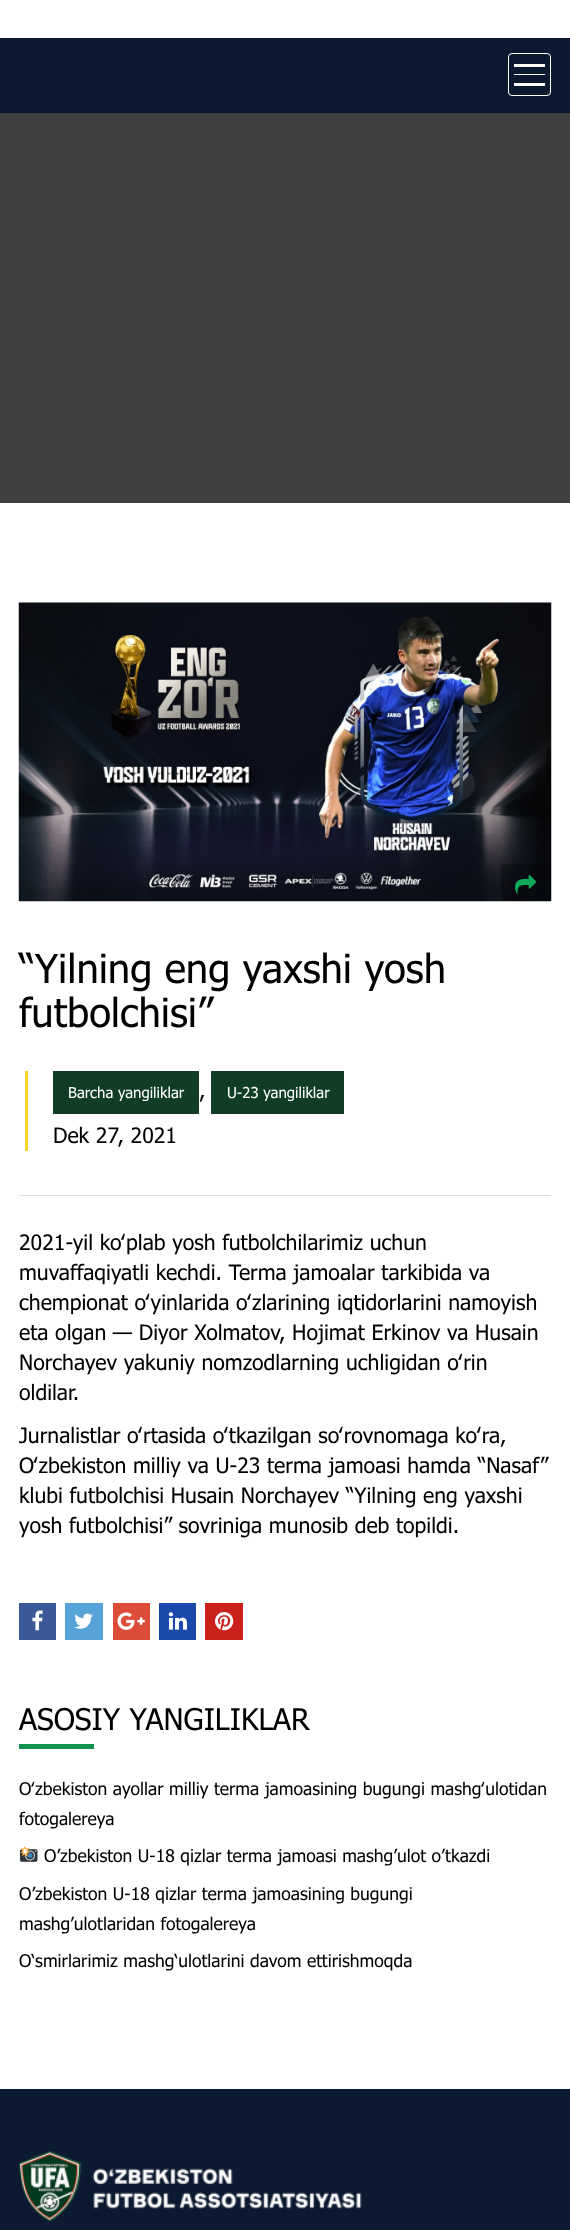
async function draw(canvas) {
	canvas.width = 570;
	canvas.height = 2230;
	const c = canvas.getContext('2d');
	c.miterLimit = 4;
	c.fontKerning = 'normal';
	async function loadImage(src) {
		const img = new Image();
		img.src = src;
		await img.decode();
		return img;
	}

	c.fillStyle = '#fff';
	c.fillRect(0, 0, 570, 2230);
	c.fillStyle = '#0c1a31';
	c.fillRect(0, 38, 570, 75);
	c.beginPath();
	c.roundRect(508.5, 53.5, 42, 42, 3.5);
	c.strokeStyle = '#fff';
	c.stroke();
	for (const [x, y, w, h, color] of [
		[514, 64, 31, 3, '#fff'],
		[514, 74, 31, 1, '#fff'],
		[514, 83, 31, 3, '#fff'],
		[0, 113, 570, 390, '#404040'],
	]) {
		c.fillStyle = color;
		c.fillRect(x, y, w, h);
	}
	c.drawImage(await loadImage('img1.png'), 18, 602, 534, 300);
	c.fillStyle = '#0000004d';
	c.fillRect(501, 864, 50, 37);
	c.drawImage(await loadImage('img2.png'), 515, 875, 22, 19);
	c.font = '40px Tahoma';
	c.fillStyle = '#000';
	c.fillText('“Yilning eng yaxshi yosh', 19, 983);
	c.fillText('futbolchisi”', 19, 1027);
	c.fillStyle = '#fad32b';
	c.fillRect(25, 1071, 3, 80);
	c.fillStyle = '#113d26';
	c.fillRect(53, 1071, 146, 43);
	c.font = '15px Tahoma';
	c.fillStyle = '#fff';
	c.fillText('Barcha yangiliklar', 68, 1098);
	c.font = '21.25px Tahoma';
	c.fillStyle = '#000';
	c.fillText(',', 199, 1098);
	c.fillStyle = '#113d26';
	c.fillRect(211, 1071, 133, 43);
	c.font = '15px Tahoma';
	c.fillStyle = '#fff';
	c.fillText('U-23 yangiliklar', 227, 1098);
	c.font = '21.25px Tahoma';
	c.fillStyle = '#000';
	c.fillText('Dek 27, 2021', 53, 1143);
	c.fillStyle = '#dfdfdf';
	c.fillRect(19, 1195, 532, 1);
	c.fillStyle = '#000';
	for (const [text, x, y] of [
		['2021-yil koʻplab yosh futbolchilarimiz uchun', 19, 1250],
		['muvaffaqiyatli kechdi. Terma jamoalar tarkibida va', 19, 1280],
		['chempionat oʻyinlarida oʻzlarining iqtidorlarini namoyish', 19, 1310],
		['eta olgan — Diyor Xolmatov, Hojimat Erkinov va Husain', 19, 1340],
		['Norchayev yakuniy nomzodlarning uchligidan oʻrin', 19, 1370],
		['oldilar.', 19, 1400],
		['Jurnalistlar oʻrtasida oʻtkazilgan soʻrovnomaga koʻra,', 19, 1443],
		['Oʻzbekiston milliy va U-23 terma jamoasi hamda “Nasaf”', 19, 1473],
		['klubi futbolchisi Husain Norchayev “Yilning eng yaxshi', 19, 1503],
		['yosh futbolchisi” sovriniga munosib deb topildi.', 19, 1533],
	]) {
		c.fillText(text, x, y);
	}
	c.fillStyle = '#3b5998';
	c.fillRect(19, 1603, 37, 37);
	c.drawImage(await loadImage('img3.png'), 32, 1610, 11, 21);
	c.fillStyle = '#56a3d9';
	c.fillRect(65, 1603, 38, 37);
	c.drawImage(await loadImage('img4.png'), 74, 1613, 19, 16);
	c.fillStyle = '#dd4b39';
	c.fillRect(113, 1603, 37, 37);
	c.drawImage(await loadImage('img5.png'), 117, 1612, 28, 18);
	c.fillStyle = '#1a49ab';
	c.fillRect(159, 1603, 37, 37);
	c.drawImage(await loadImage('img6.png'), 168, 1612, 19, 18);
	c.fillStyle = '#cb211d';
	c.fillRect(205, 1603, 38, 37);
	c.drawImage(await loadImage('img7.png'), 215, 1612, 19, 19);
	c.font = '30px Tahoma';
	c.fillStyle = '#000';
	c.fillText('ASOSIY YANGILIKLAR', 19, 1730);
	c.fillStyle = '#0e934e';
	c.fillRect(19, 1744, 75, 5);
	c.font = '17.5px Tahoma';
	c.fillStyle = '#000';
	c.fillText('Oʻzbekiston ayollar milliy terma jamoasining bugungi mashgʻulotidan', 19, 1795);
	c.fillText('fotogalereya', 19, 1825);
	c.drawImage(await loadImage('img8.png'), 20, 1846, 18, 16);
	for (const [text, x, y] of [
		['O’zbekiston U-18 qizlar terma jamoasi mashg’ulot o’tkazdi', 44, 1862],
		['O’zbekiston U-18 qizlar terma jamoasining bugungi', 19, 1900],
		['mashg’ulotlaridan fotogalereya', 19, 1930],
		['O‘smirlarimiz mashg‘ulotlarini davom ettirishmoqda', 19, 1967],
	]) {
		c.fillText(text, x, y);
	}
	c.drawImage(await loadImage('img9.png'), 0, 2088, 570, 1);
	c.fillStyle = '#0c1a31';
	c.fillRect(0, 2089, 570, 141);
	c.drawImage(await loadImage('img10.png'), 18, 2151, 344, 71);
}

draw(document.querySelector('canvas'));
